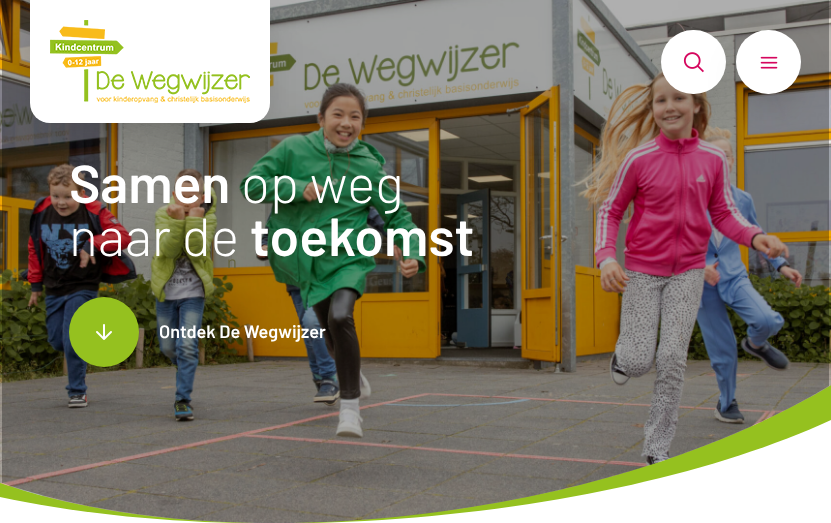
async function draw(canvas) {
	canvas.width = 831;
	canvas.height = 523;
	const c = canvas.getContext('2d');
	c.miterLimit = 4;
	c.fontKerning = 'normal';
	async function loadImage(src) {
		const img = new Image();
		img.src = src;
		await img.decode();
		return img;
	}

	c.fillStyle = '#fff';
	c.fillRect(0, 0, 831, 523);
	c.fillStyle = '#95c11f';
	c.beginPath();
	c.moveTo(0, -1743);
	c.lineTo(0, 497);
	c.bezierCurveTo(107, 520, 240, 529, 382, 520);
	c.bezierCurveTo(561, 508, 720, 471, 831, 420);
	c.lineTo(831, -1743);
	c.closePath();
	c.fill();
	c.drawImage(await loadImage('img4.png'), 0, 0, 831, 523);
	c.fillStyle = '#0000004d';
	c.beginPath();
	c.moveTo(829, -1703);
	c.lineTo(2, -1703);
	c.lineTo(2, 483);
	c.bezierCurveTo(116, 522, 274, 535, 445, 511);
	c.bezierCurveTo(597, 490, 732, 444, 829, 386);
	c.closePath();
	c.fill();
	c.fillStyle = '#00000033';
	c.filter = 'blur(20px)';
	c.beginPath();
	c.roundRect(40, 30, 220, 103, 10);
	c.fill();
	c.filter = 'none';
	c.fillStyle = '#fff';
	c.beginPath();
	c.roundRect(30, 0, 240, 123, [0, 0, 20, 20]);
	c.fill();
	c.drawImage(await loadImage('img1.png'), 50, 20, 200, 83);
	c.fillStyle = '#00000033';
	c.filter = 'blur(20px)';
	c.beginPath();
	c.roundRect(671, 60, 45, 44, 22);
	c.fill();
	c.filter = 'none';
	c.fillStyle = '#fff';
	c.beginPath();
	c.roundRect(661, 30, 65, 64, 32);
	c.fill();
	c.drawImage(await loadImage('img2.png'), 683, 52, 21, 21);
	c.fillStyle = '#00000033';
	c.filter = 'blur(20px)';
	c.beginPath();
	c.roundRect(746, 60, 45, 44, 22);
	c.fill();
	c.filter = 'none';
	c.fillStyle = '#fff';
	c.beginPath();
	c.roundRect(736, 30, 65, 64, 32);
	c.fill();
	c.drawImage(await loadImage('img3.png'), 760, 56, 18, 13);
	c.font = '600 53.5px Barlow';
	c.fillText('Samen', 69, 203);
	c.font = '300 53.5px Barlow';
	c.fillText('op weg', 241, 203);
	c.fillText('naar de', 69, 256);
	c.font = '600 53.5px Barlow';
	c.fillText('toekomst', 250, 256);
	c.fillStyle = '#95c11f';
	c.beginPath();
	c.arc(104, 332, 35, 0, 2 * Math.PI);
	c.fill();
	c.drawImage(await loadImage('img5.png'), 96, 324, 16, 16);
	c.font = '600 18px Barlow';
	c.fillStyle = '#fff';
	c.fillText('Ontdek De Wegwijzer', 159, 338);
	c.font = '16px Open Sans';
	c.fillStyle = '#656441';
	c.fillText('n', 227, 268);
}

draw(document.querySelector('canvas'));
